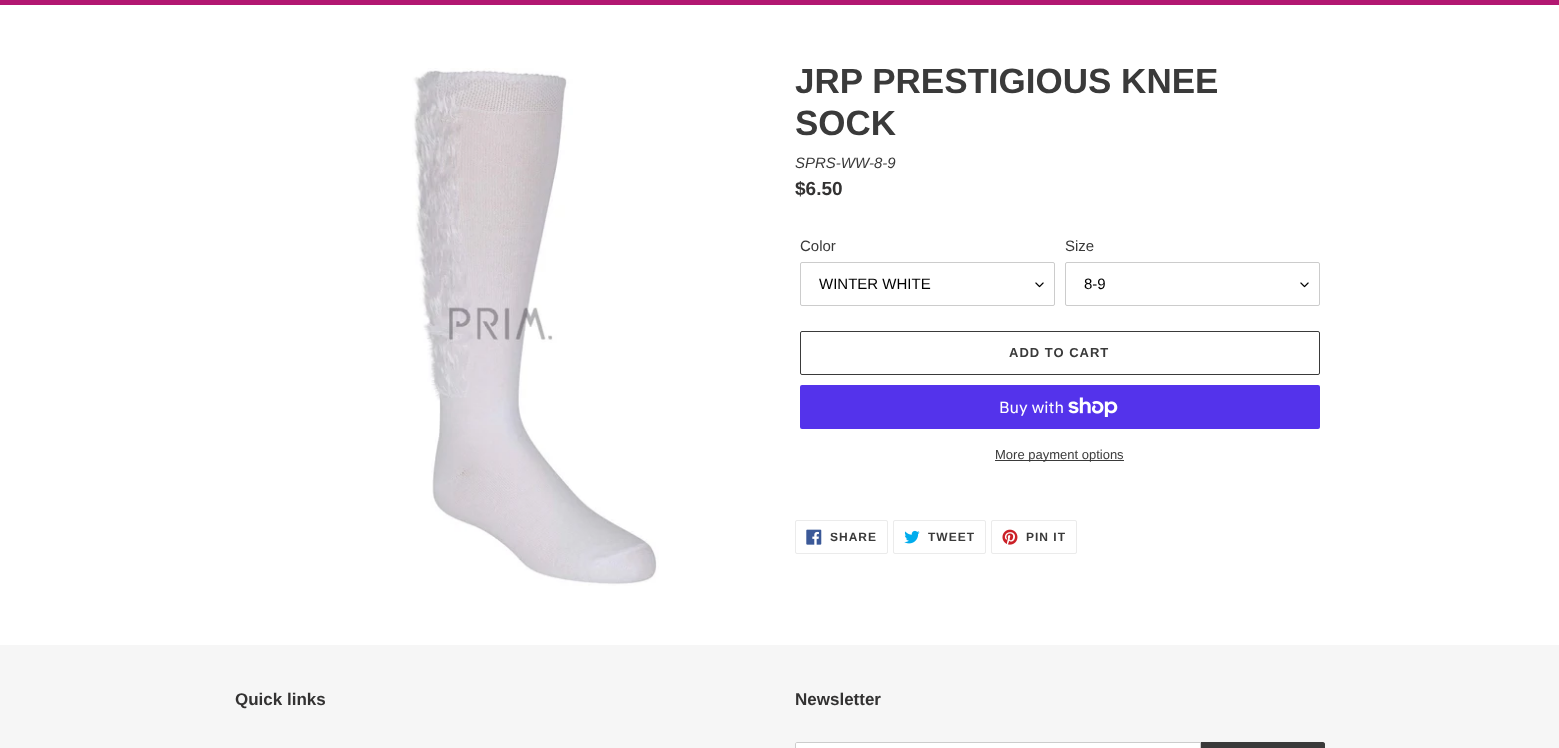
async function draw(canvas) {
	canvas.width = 1559;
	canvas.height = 748;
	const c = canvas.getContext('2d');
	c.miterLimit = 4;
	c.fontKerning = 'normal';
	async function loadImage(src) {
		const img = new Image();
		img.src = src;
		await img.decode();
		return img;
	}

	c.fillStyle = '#fff';
	c.fillRect(0, 0, 1559, 748);
	c.fillStyle = '#b21771';
	c.fillRect(0, 0, 1559, 5);
	c.drawImage(await loadImage('img1.png'), 412, 68, 247, 518);
	c.font = 'bold 35px Liberation Sans';
	c.fillStyle = '#3a3a3a';
	c.fillText('JRP PRESTIGIOUS KNEE', 795, 93);
	c.fillText('SOCK', 795, 135);
	c.font = 'italic 15px Liberation Sans';
	c.fillText('SPRS-WW-8-9', 795, 168);
	c.font = 'bold 19px Liberation Sans';
	c.fillStyle = '#333232';
	c.fillText('$6.50', 795, 195);
	c.font = '15px Liberation Sans';
	c.fillStyle = '#3a3a3a';
	c.fillText('Color', 800, 251);
	c.drawImage(await loadImage('img2.png'), 1035, 282, 9, 6);
	c.beginPath();
	c.roundRect(800.5, 262.5, 254, 43, 1.5);
	c.strokeStyle = '#ccc';
	c.stroke();
	c.fillStyle = '#000';
	c.fillText('WINTER WHITE', 819, 289);
	c.fillStyle = '#3a3a3a';
	c.fillText('Size', 1065, 251);
	c.drawImage(await loadImage('img2.png'), 1300, 282, 9, 6);
	c.beginPath();
	c.roundRect(1065.5, 262.5, 254, 43, 1.5);
	c.stroke();
	c.fillStyle = '#000';
	c.fillText('8-9', 1084, 289);
	c.beginPath();
	c.roundRect(800.5, 331.5, 519, 43, 1.5);
	c.strokeStyle = '#3a3a3a';
	c.stroke();
	c.letterSpacing = '1px';
	c.font = 'bold 13px Liberation Sans';
	c.fillStyle = '#3a3a3a';
	c.fillText('ADD TO CART', 1009, 357);
	c.fillStyle = '#5433eb';
	c.beginPath();
	c.roundRect(800, 385, 520, 44, 2);
	c.fill();
	c.letterSpacing = '0px';
	c.font = '16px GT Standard';
	c.fillStyle = '#fff';
	c.fillText('Buy with', 999, 413);
	c.drawImage(await loadImage('img3.png'), 1068, 397, 50, 20);
	c.fillStyle = '#3a3a3a';
	c.fillRect(995, 460, 129, 1);
	c.font = '13px Liberation Sans';
	c.fillText('More payment options', 995, 459);
	c.beginPath();
	c.roundRect(795.5, 520.5, 92, 33, 1.5);
	c.strokeStyle = '#ebebeb';
	c.stroke();
	c.drawImage(await loadImage('img4.png'), 806, 529, 16, 16);
	c.letterSpacing = '1px';
	c.font = 'bold 12px Liberation Sans';
	c.fillText('SHARE', 830, 541);
	c.beginPath();
	c.roundRect(893.5, 520.5, 92, 33, 1.5);
	c.stroke();
	c.drawImage(await loadImage('img5.png'), 904, 530, 16, 14);
	c.fillText('TWEET', 928, 541);
	c.beginPath();
	c.roundRect(991.5, 520.5, 85, 33, 1.5);
	c.stroke();
	c.drawImage(await loadImage('img6.png'), 1002, 529, 16, 16);
	c.fillText('PIN IT', 1026, 541);
	c.fillStyle = '#f6f6f6';
	c.fillRect(0, 645, 1559, 103);
	c.letterSpacing = '0px';
	c.font = 'bold 17px Liberation Sans';
	c.fillStyle = '#333232';
	c.fillText('Quick links', 235, 705);
	c.fillText('Newsletter', 795, 705);
	c.fillStyle = '#fff';
	c.beginPath();
	c.moveTo(797, 742.5);
	c.lineTo(1200.5, 742.5);
	c.lineTo(1200.5, 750.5);
	c.lineTo(797, 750.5);
	c.bezierCurveTo(796, 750.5, 795.5, 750, 795.5, 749);
	c.lineTo(795.5, 744);
	c.bezierCurveTo(795.5, 743, 796, 742.5, 797, 742.5);
	c.closePath();
	c.fill();
	c.strokeStyle = '#ccc';
	c.stroke();
	c.fillStyle = '#3a3a3a';
	c.beginPath();
	c.moveTo(1201, 742);
	c.lineTo(1323, 742);
	c.bezierCurveTo(1324, 742, 1325, 743, 1325, 744);
	c.lineTo(1325, 748);
	c.bezierCurveTo(1325, 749, 1324, 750, 1323, 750);
	c.lineTo(1201, 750);
	c.closePath();
	c.fill();
}

draw(document.querySelector('canvas'));
